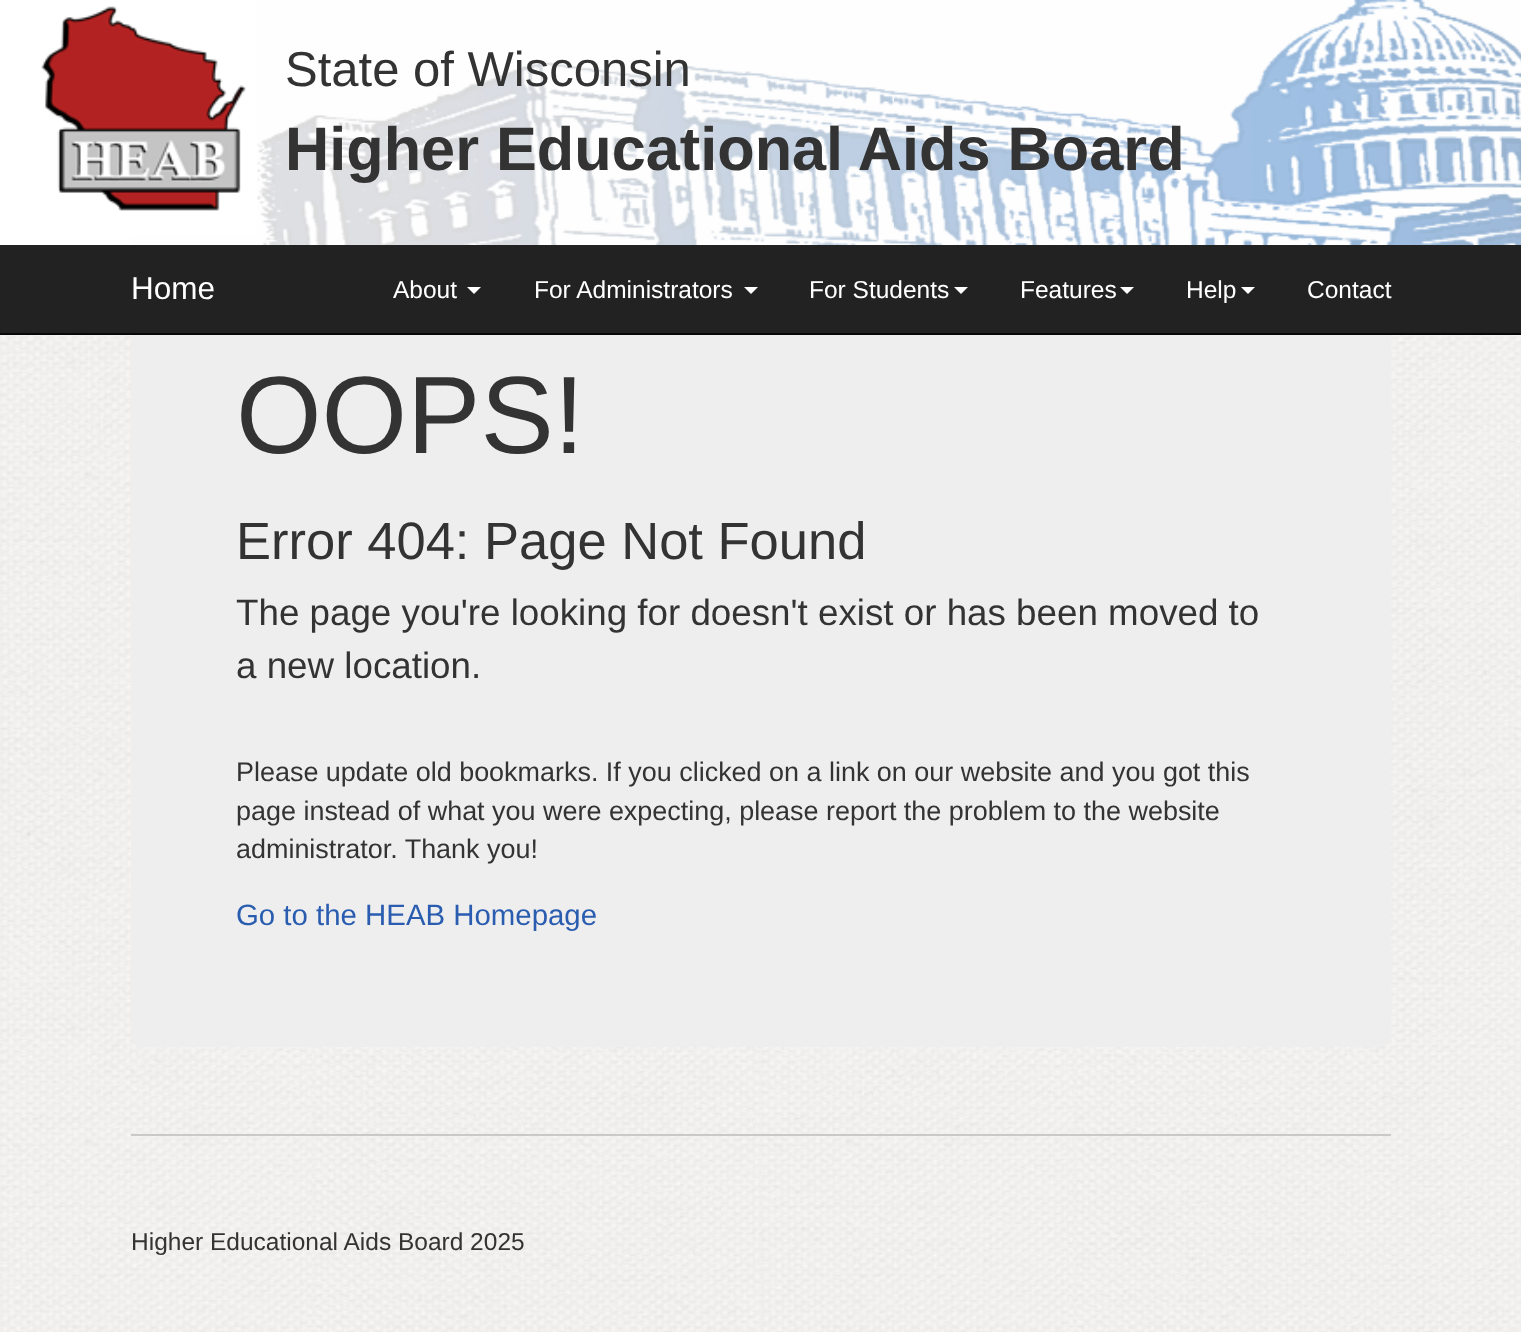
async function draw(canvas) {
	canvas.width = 1521;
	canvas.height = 1332;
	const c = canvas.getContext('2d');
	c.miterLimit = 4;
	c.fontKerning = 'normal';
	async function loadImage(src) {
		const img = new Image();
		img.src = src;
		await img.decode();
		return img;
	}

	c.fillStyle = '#fff';
	c.fillRect(0, 0, 1521, 1332);
	c.drawImage(await loadImage('img1.png'), 0, 1255, 1521, 77);
	c.drawImage(await loadImage('img2.png'), 0, 335, 1521, 920);
	c.fillStyle = '#eee';
	c.beginPath();
	c.roundRect(131, 236, 1260, 811, 11);
	c.fill();
	for (const [x, y, w, h, color] of [
		[0, 245, 1521, 88, '#222'],
		[0, 333, 1521, 2, '#080808'],
		[131, 236, 126, 9, '#fefefe'],
	]) {
		c.fillStyle = color;
		c.fillRect(x, y, w, h);
	}
	c.drawImage(await loadImage('img3.png'), 257, 0, 1264, 245);
	c.drawImage(await loadImage('img4.png'), 41, 6, 205, 205);
	c.font = '49px Liberation Sans';
	c.fillStyle = '#333';
	c.fillText('State of Wisconsin', 285, 86);
	c.font = 'bold 61.25px Liberation Sans';
	c.fillText('Higher Educational Aids Board', 285, 170);
	c.font = '31.5px Liberation Sans';
	c.fillStyle = '#fff';
	c.fillText('Home', 131, 299);
	c.font = '24.5px Liberation Sans';
	c.fillText('About', 393, 298);
	c.beginPath();
	c.moveTo(467, 287);
	c.lineTo(481, 287);
	c.lineTo(474, 294);
	c.closePath();
	c.fill();
	c.fillText('For Administrators', 534, 298);
	c.beginPath();
	c.moveTo(744, 287);
	c.lineTo(758, 287);
	c.lineTo(751, 294);
	c.closePath();
	c.fill();
	c.fillText('For Students', 809, 298);
	c.beginPath();
	c.moveTo(954, 287);
	c.lineTo(968, 287);
	c.lineTo(961, 294);
	c.closePath();
	c.fill();
	c.fillText('Features', 1020, 298);
	c.beginPath();
	c.moveTo(1120, 287);
	c.lineTo(1134, 287);
	c.lineTo(1127, 294);
	c.closePath();
	c.fill();
	c.fillText('Help', 1186, 298);
	c.beginPath();
	c.moveTo(1241, 287);
	c.lineTo(1255, 287);
	c.lineTo(1248, 294);
	c.closePath();
	c.fill();
	c.fillText('Contact', 1307, 298);
	c.font = '110px Liberation Sans';
	c.fillStyle = '#333';
	c.fillText('OOPS!', 236, 453);
	c.font = '52.5px Liberation Sans';
	c.fillText('Error 404: Page Not Found', 236, 559);
	c.font = '36.75px Liberation Sans';
	c.fillText('The page you\'re looking for doesn\'t exist or has been moved to', 236, 625);
	c.fillText('a new location.', 236, 678);
	c.font = '26.95px Liberation Sans';
	for (const [text, x, y] of [
		['Please update old bookmarks. If you clicked on a link on our website and you got this', 236, 781],
		['page instead of what you were expecting, please report the problem to the website', 236, 820],
		['administrator. Thank you!', 236, 858],
	]) {
		c.fillText(text, x, y);
	}
	c.font = '29.4px Liberation Sans';
	c.fillStyle = '#2a5db0';
	c.fillText('Go to the HEAB Homepage', 236, 925);
	c.fillStyle = '#c9c9c9';
	c.fillRect(131, 1134, 1260, 2);
	c.font = '24.5px Liberation Sans';
	c.fillStyle = '#333';
	c.fillText('Higher Educational Aids Board 2025', 131, 1250);
}

draw(document.querySelector('canvas'));
